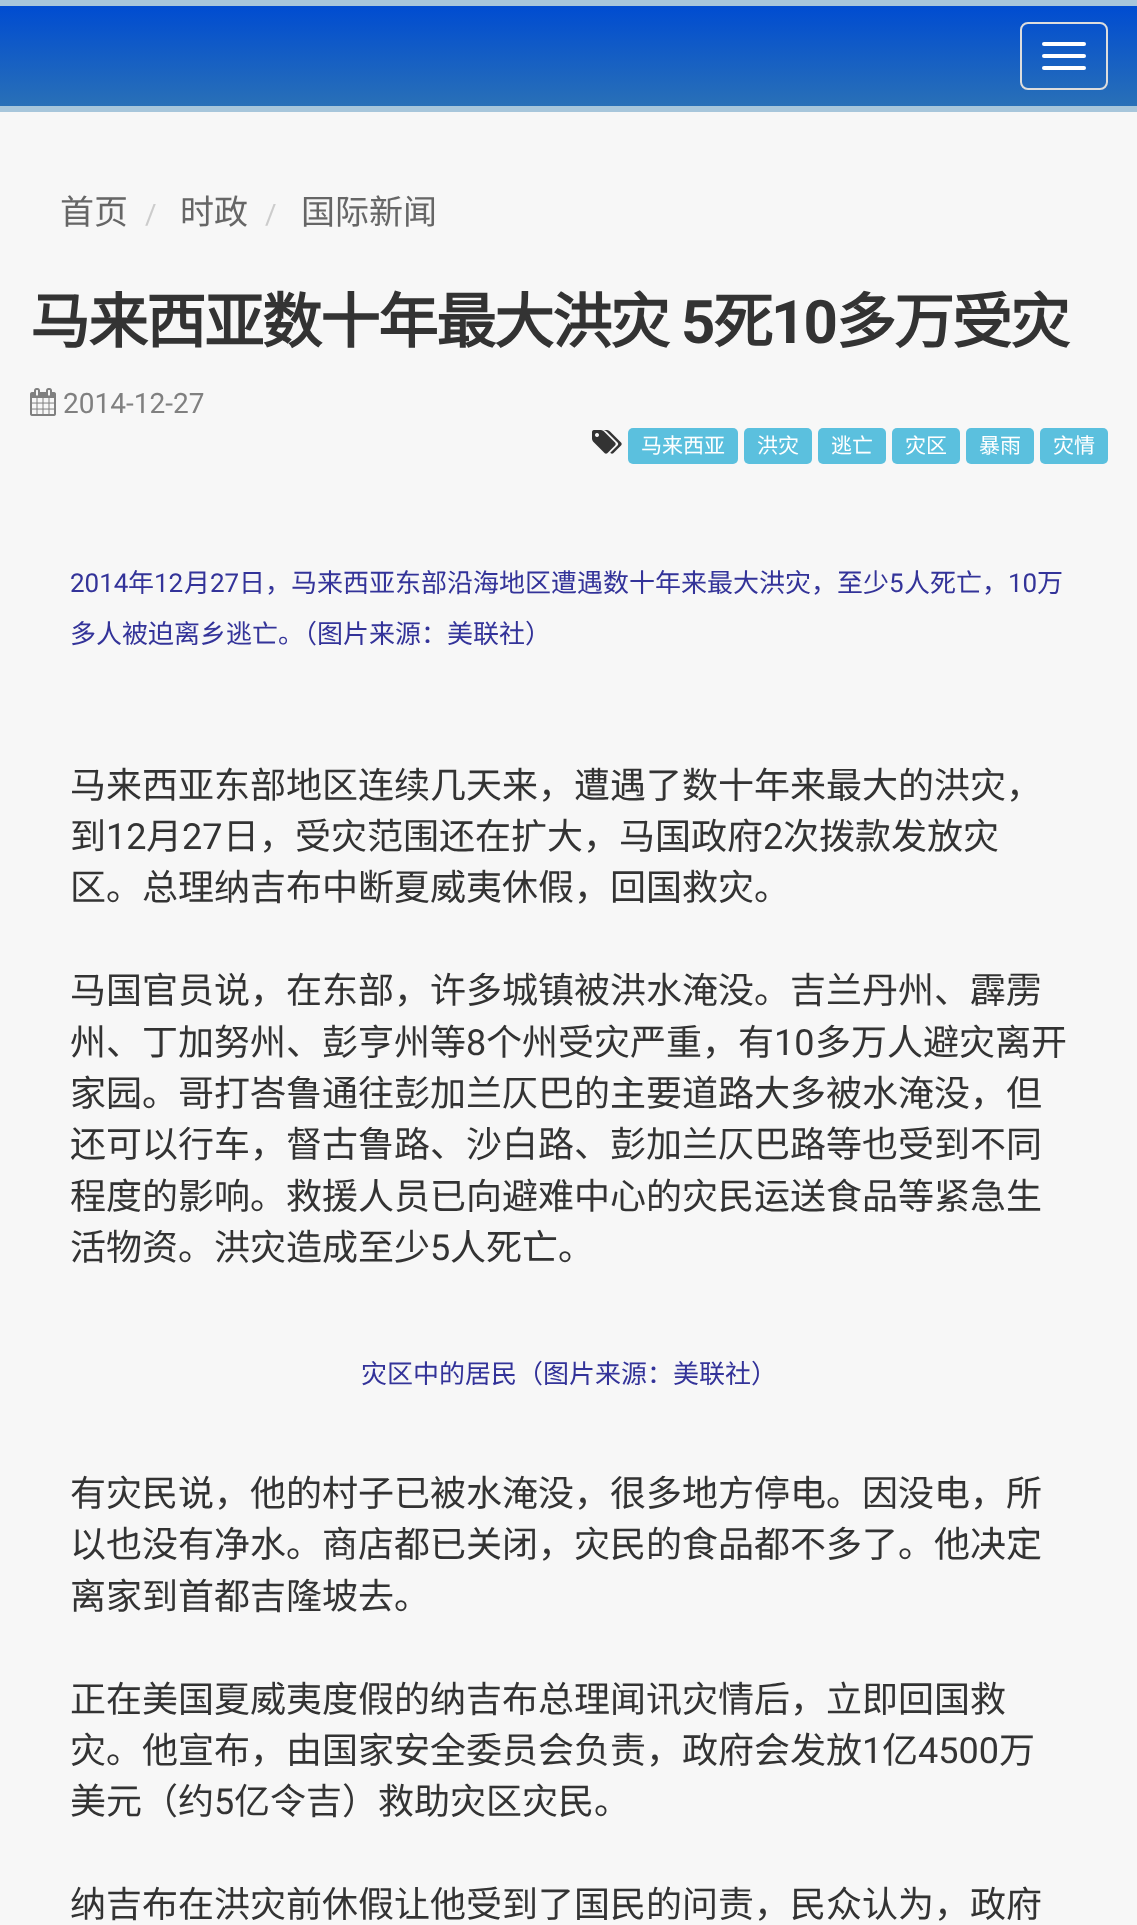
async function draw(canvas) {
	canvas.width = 1137;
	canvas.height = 1925;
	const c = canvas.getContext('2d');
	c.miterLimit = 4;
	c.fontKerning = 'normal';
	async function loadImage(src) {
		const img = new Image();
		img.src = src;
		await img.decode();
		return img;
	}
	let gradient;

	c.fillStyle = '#f7f7f7';
	c.fillRect(0, 0, 1137, 1925);
	gradient = c.createLinearGradient(569, 6, 569, 106);
	gradient.addColorStop(0, '#004cd1');
	gradient.addColorStop(1, '#2970b7');
	c.fillStyle = gradient;
	c.fillRect(0, 6, 1137, 100);
	c.fillStyle = '#a7c6db';
	c.fillRect(0, 0, 1137, 6);
	c.fillRect(0, 106, 1137, 6);
	c.beginPath();
	c.roundRect(1021, 23, 86, 66, 7);
	c.strokeStyle = '#ddd';
	c.lineWidth = 2;
	c.stroke();
	c.fillStyle = '#fff';
	c.beginPath();
	c.roundRect(1042, 42, 44, 4, 2);
	c.fill();
	c.beginPath();
	c.roundRect(1042, 54, 44, 4, 2);
	c.fill();
	c.beginPath();
	c.roundRect(1042, 66, 44, 4, 2);
	c.fill();
	c.font = '34px Noto Sans CJK SC';
	c.fillStyle = '#666';
	c.fillText('首页', 60, 224);
	c.font = '28px Roboto';
	c.fillStyle = '#ccc';
	c.fillText('/', 145, 224);
	c.font = '34px Noto Sans CJK SC';
	c.fillStyle = '#666';
	c.fillText('时政', 180, 224);
	c.font = '28px Roboto';
	c.fillStyle = '#ccc';
	c.fillText('/', 265, 224);
	c.font = '34px Noto Sans CJK SC';
	c.fillStyle = '#666';
	c.fillText('国际新闻', 301, 224);
	c.letterSpacing = '-2px';
	c.font = 'bold 60px Noto Sans CJK SC';
	c.fillStyle = '#333';
	c.fillText('马来西亚数十年最大洪灾', 30, 343);
	c.font = 'bold 60px Roboto';
	c.fillText('5', 681, 343);
	c.font = 'bold 60px Noto Sans CJK SC';
	c.fillText('死', 713, 343);
	c.font = 'bold 60px Roboto';
	c.fillText('10', 771, 343);
	c.font = 'bold 60px Noto Sans CJK SC';
	c.fillText('多万受灾', 836, 343);
	c.drawImage(await loadImage('img1.png'), 30, 388, 26, 28);
	c.letterSpacing = '0px';
	c.font = '28px Roboto';
	c.fillStyle = '#808080';
	c.fillText('2014-12-27', 63, 413);
	c.drawImage(await loadImage('img2.png'), 592, 430, 30, 24);
	c.fillStyle = '#5bc0de';
	c.beginPath();
	c.roundRect(628, 428, 110, 36, 5);
	c.fill();
	c.font = '21px Noto Sans CJK SC';
	c.fillStyle = '#fff';
	c.fillText('马来西亚', 641, 453);
	c.fillStyle = '#5bc0de';
	c.beginPath();
	c.roundRect(744, 428, 68, 36, 5);
	c.fill();
	c.fillStyle = '#fff';
	c.fillText('洪灾', 757, 453);
	c.fillStyle = '#5bc0de';
	c.beginPath();
	c.roundRect(818, 428, 68, 36, 5);
	c.fill();
	c.fillStyle = '#fff';
	c.fillText('逃亡', 831, 453);
	c.fillStyle = '#5bc0de';
	c.beginPath();
	c.roundRect(892, 428, 68, 36, 5);
	c.fill();
	c.fillStyle = '#fff';
	c.fillText('灾区', 905, 453);
	c.fillStyle = '#5bc0de';
	c.beginPath();
	c.roundRect(966, 428, 68, 36, 5);
	c.fill();
	c.fillStyle = '#fff';
	c.fillText('暴雨', 979, 453);
	c.fillStyle = '#5bc0de';
	c.beginPath();
	c.roundRect(1040, 428, 68, 36, 5);
	c.fill();
	c.fillStyle = '#fff';
	c.fillText('灾情', 1053, 453);
	c.font = '26px Roboto';
	c.fillStyle = '#339';
	c.fillText('2014', 70, 592);
	c.font = '26px Noto Sans CJK SC';
	c.fillText('年', 128, 592);
	c.font = '26px Roboto';
	c.fillText('12', 154, 592);
	c.font = '26px Noto Sans CJK SC';
	c.fillText('月', 184, 592);
	c.font = '26px Roboto';
	c.fillText('27', 210, 592);
	c.font = '26px Noto Sans CJK SC';
	c.fillText('日，马来西亚东部沿海地区遭遇数十年来最大洪灾，至少', 239, 592);
	c.font = '26px Roboto';
	c.fillText('5', 889, 592);
	c.font = '26px Noto Sans CJK SC';
	c.fillText('人死亡，', 904, 592);
	c.font = '26px Roboto';
	c.fillText('10', 1008, 592);
	c.font = '26px Noto Sans CJK SC';
	c.fillText('万', 1037, 592);
	c.fillText('多人被迫离乡逃亡。（图片来源：美联社）', 70, 643);
	c.font = '36px Noto Sans CJK SC';
	c.fillStyle = '#333';
	c.fillText('马来西亚东部地区连续几天来，遭遇了数十年来最大的洪灾，', 70, 798);
	c.fillText('到', 70, 849);
	c.font = '36px Roboto';
	c.fillText('12', 106, 849);
	c.font = '36px Noto Sans CJK SC';
	c.fillText('月', 146, 849);
	c.font = '36px Roboto';
	c.fillText('27', 182, 849);
	c.font = '36px Noto Sans CJK SC';
	c.fillText('日，受灾范围还在扩大，马国政府', 223, 849);
	c.font = '36px Roboto';
	c.fillText('2', 763, 849);
	c.font = '36px Noto Sans CJK SC';
	for (const [text, x, y] of [
		['次拨款发放灾', 783, 849],
		['区。总理纳吉布中断夏威夷休假，回国救灾。', 70, 900],
		['马国官员说，在东部，许多城镇被洪水淹没。吉兰丹州、霹雳', 70, 1003],
		['州、丁加努州、彭亨州等', 70, 1055],
	]) {
		c.fillText(text, x, y);
	}
	c.font = '36px Roboto';
	c.fillText('8', 466, 1055);
	c.font = '36px Noto Sans CJK SC';
	c.fillText('个州受灾严重，有', 486, 1055);
	c.font = '36px Roboto';
	c.fillText('10', 774, 1055);
	c.font = '36px Noto Sans CJK SC';
	for (const [text, x, y] of [
		['多万人避灾离开', 815, 1055],
		['家园。哥打峇鲁通往彭加兰仄巴的主要道路大多被水淹没，但', 70, 1106],
		['还可以行车，督古鲁路、沙白路、彭加兰仄巴路等也受到不同', 70, 1157],
		['程度的影响。救援人员已向避难中心的灾民运送食品等紧急生', 70, 1209],
		['活物资。洪灾造成至少', 70, 1260],
	]) {
		c.fillText(text, x, y);
	}
	c.font = '36px Roboto';
	c.fillText('5', 430, 1260);
	c.font = '36px Noto Sans CJK SC';
	c.fillText('人死亡。', 450, 1260);
	c.font = '26px Noto Sans CJK SC';
	c.fillStyle = '#339';
	c.fillText('灾区中的居民（图片来源：美联社）', 361, 1383);
	c.font = '36px Noto Sans CJK SC';
	c.fillStyle = '#333';
	for (const [text, x, y] of [
		['有灾民说，他的村子已被水淹没，很多地方停电。因没电，所', 70, 1506],
		['以也没有净水。商店都已关闭，灾民的食品都不多了。他决定', 70, 1557],
		['离家到首都吉隆坡去。', 70, 1609],
		['正在美国夏威夷度假的纳吉布总理闻讯灾情后，立即回国救', 70, 1712],
		['灾。他宣布，由国家安全委员会负责，政府会发放', 70, 1763],
	]) {
		c.fillText(text, x, y);
	}
	c.font = '36px Roboto';
	c.fillText('1', 862, 1763);
	c.font = '36px Noto Sans CJK SC';
	c.fillText('亿', 882, 1763);
	c.font = '36px Roboto';
	c.fillText('4500', 918, 1763);
	c.font = '36px Noto Sans CJK SC';
	c.fillText('万', 999, 1763);
	c.fillText('美元（约', 70, 1814);
	c.font = '36px Roboto';
	c.fillText('5', 214, 1814);
	c.font = '36px Noto Sans CJK SC';
	c.fillText('亿令吉）救助灾区灾民。', 234, 1814);
	c.fillText('纳吉布在洪灾前休假让他受到了国民的问责，民众认为，政府', 70, 1917);
}

draw(document.querySelector('canvas'));
